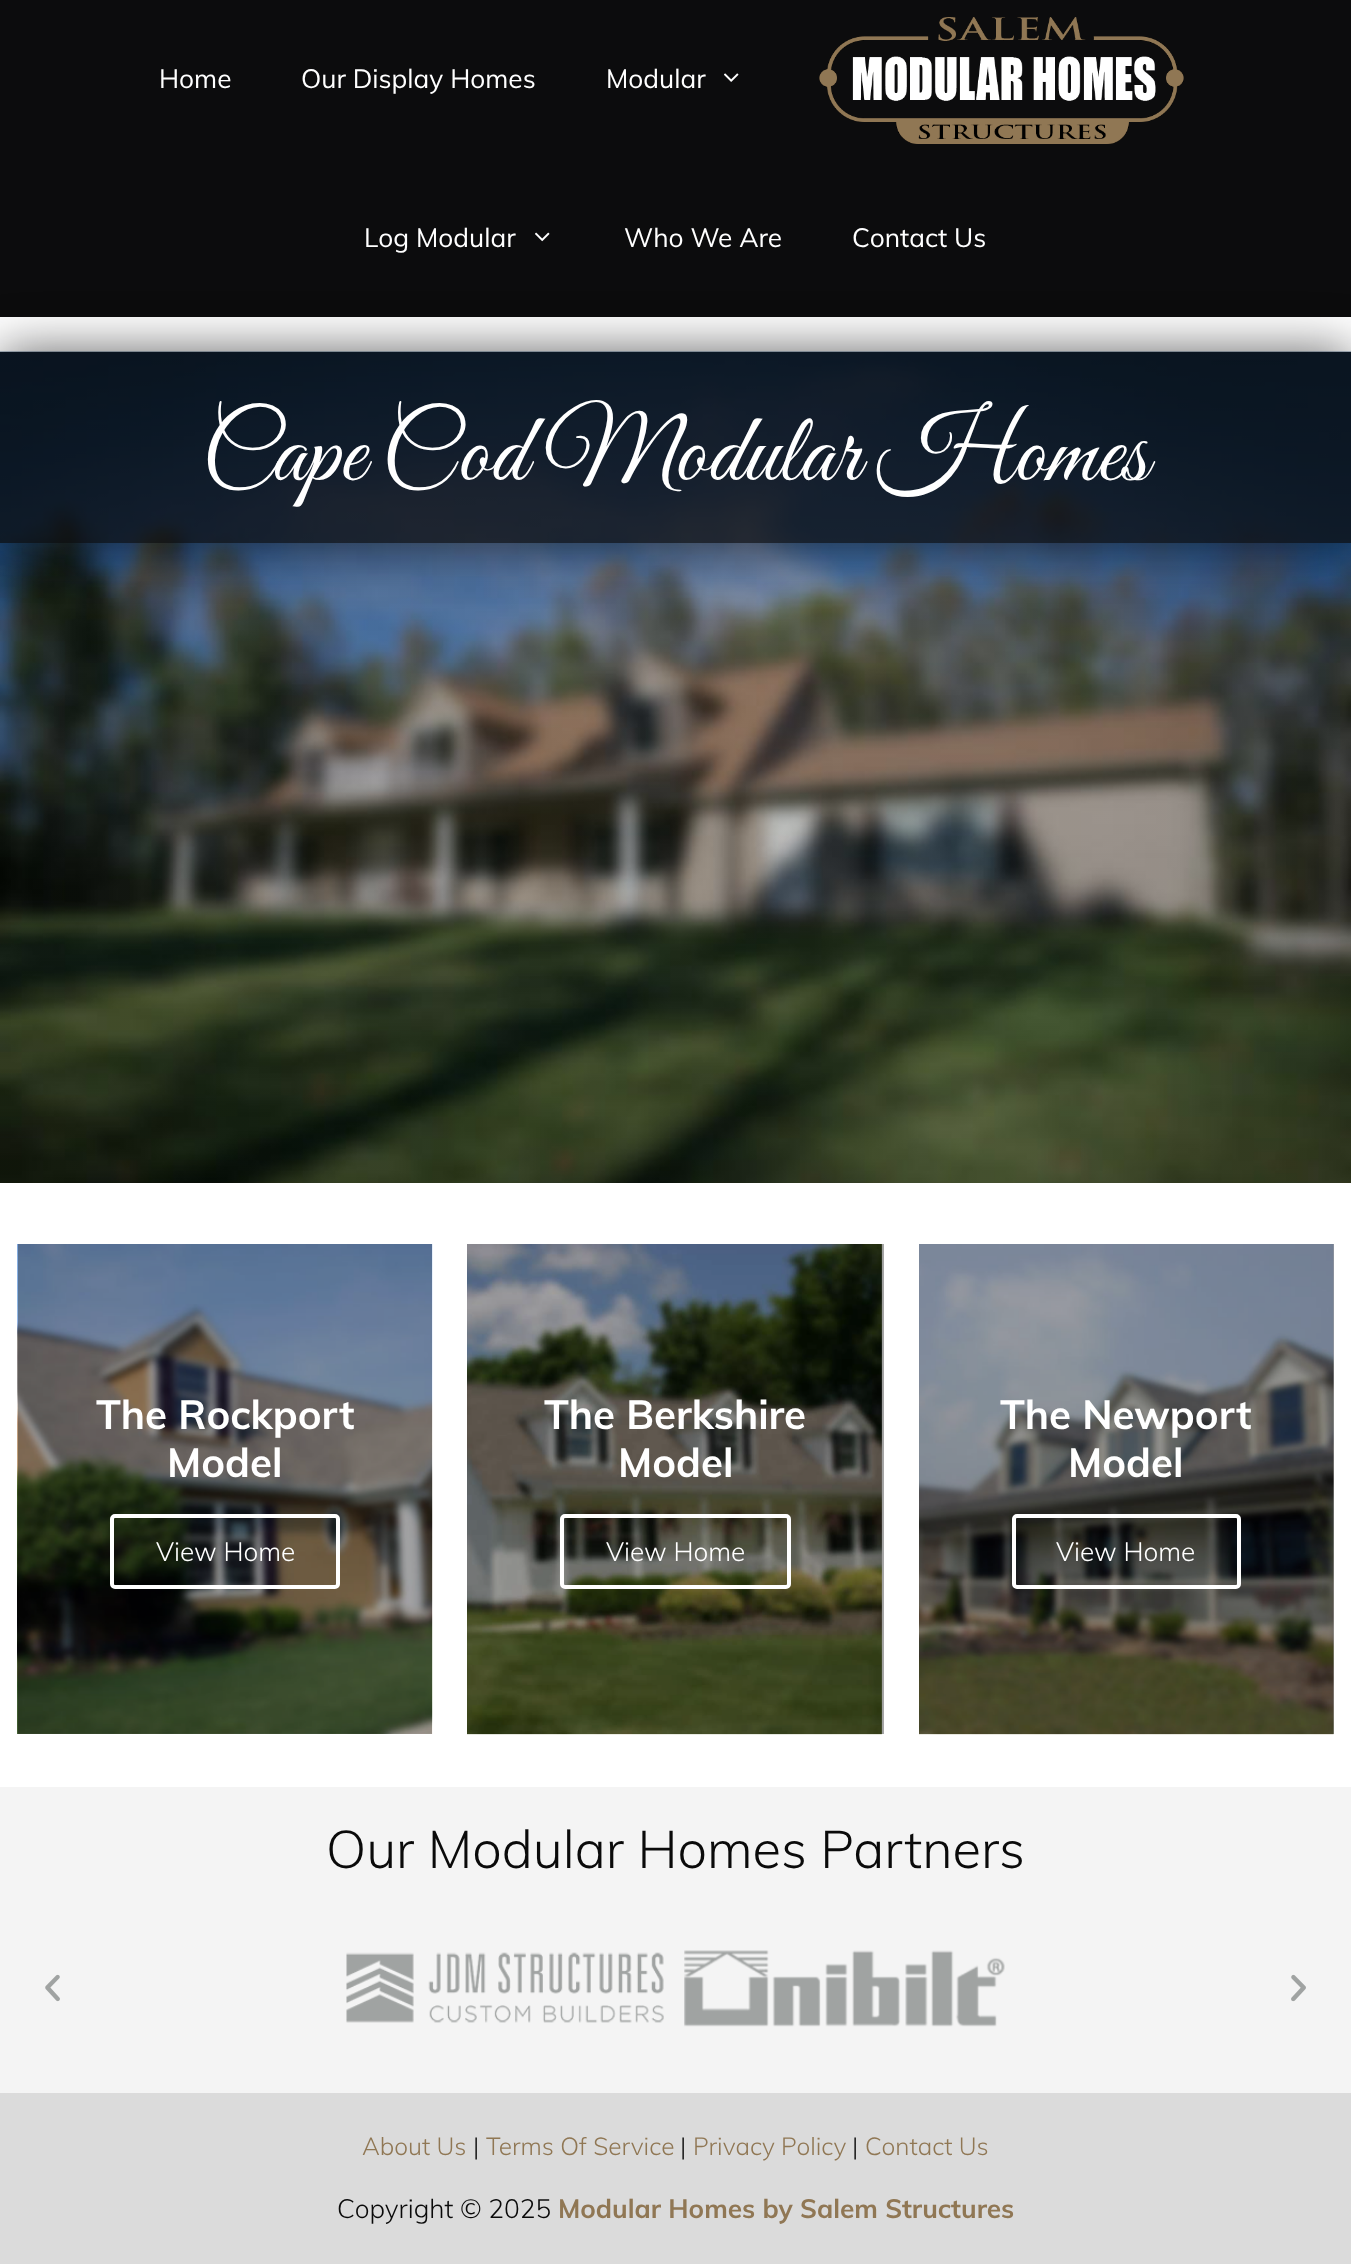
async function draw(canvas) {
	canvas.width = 1351;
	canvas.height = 2264;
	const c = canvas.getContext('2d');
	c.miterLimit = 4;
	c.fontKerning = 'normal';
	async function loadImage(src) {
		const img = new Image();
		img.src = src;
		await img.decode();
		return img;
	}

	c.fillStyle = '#fff';
	c.fillRect(0, 0, 1351, 2264);
	for (const [x, y, w, h, color] of [
		[1333, 1244, 1, 490, '#a6a6a6'],
		[881, 1244, 3, 490, '#a6a6a6'],
		[0, 0, 1351, 317, '#0c0c0d'],
	]) {
		c.fillStyle = color;
		c.fillRect(x, y, w, h);
	}
	c.font = '26.25px Muli';
	c.fillStyle = '#fff';
	for (const [text, x, y] of [
		['Home', 159, 88],
		['Our Display Homes', 301, 88],
		['Modular', 606, 88],
	]) {
		c.fillText(text, x, y);
	}
	c.drawImage(await loadImage('img1.png'), 724, 73, 15, 9);
	c.drawImage(await loadImage('img2.png'), 819, 17, 365, 127);
	c.fillText('Log Modular', 364, 247);
	c.drawImage(await loadImage('img3.png'), 535, 232, 15, 10);
	c.fillText('Who We Are', 624, 247);
	c.fillText('Contact Us', 852, 247);
	c.drawImage(await loadImage('img4.png'), 0, 351, 1351, 832);
	c.save();
	c.beginPath();
	c.moveTo(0, 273);
	c.lineTo(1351, 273);
	c.lineTo(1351, 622);
	c.lineTo(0, 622);
	c.closePath();
	c.moveTo(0, 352);
	c.lineTo(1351, 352);
	c.lineTo(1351, 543);
	c.lineTo(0, 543);
	c.closePath();
	c.clip('evenodd');
	c.fillStyle = '#0c0c0da8';
	c.filter = 'blur(26px)';
	c.beginPath();
	c.rect(0, 352, 1351, 191);
	c.fill();
	c.filter = 'none';
	c.restore();
	c.fillStyle = '#0c0c0dbf';
	c.fillRect(0, 352, 1351, 191);
	c.font = '98px Great Vibes';
	c.fillStyle = '#fff';
	c.fillText('Cape Cod Modular Homes', 202, 480);
	c.drawImage(await loadImage('img5.png'), 17, 1244, 416, 490);
	c.font = 'bold 40.25px Muli';
	c.fillText('The Rockport', 96, 1429);
	c.fillText('Model', 167, 1477);
	c.beginPath();
	c.roundRect(112, 1516, 226, 71, 3);
	c.strokeStyle = '#fff';
	c.lineWidth = 4;
	c.stroke();
	c.font = '300 26.25px Muli';
	c.fillText('View Home', 156, 1561);
	c.drawImage(await loadImage('img6.png'), 467, 1244, 416, 491);
	c.font = 'bold 40.25px Muli';
	c.fillText('The Berkshire', 544, 1429);
	c.fillText('Model', 618, 1477);
	c.beginPath();
	c.roundRect(562, 1516, 227, 71, 3);
	c.stroke();
	c.font = '300 26.25px Muli';
	c.fillText('View Home', 606, 1561);
	c.drawImage(await loadImage('img7.png'), 919, 1244, 415, 491);
	c.font = 'bold 40.25px Muli';
	c.fillText('The Newport', 1000, 1429);
	c.fillText('Model', 1068, 1477);
	c.beginPath();
	c.roundRect(1014, 1516, 225, 71, 3);
	c.stroke();
	c.font = '300 26.25px Muli';
	c.fillText('View Home', 1056, 1561);
	c.fillStyle = '#f4f4f4';
	c.fillRect(0, 1787, 1351, 306);
	c.font = '300 52.5px Muli';
	c.fillStyle = '#0a0a0a';
	c.fillText('Our Modular Homes Partners', 326, 1868);
	c.drawImage(await loadImage('img8.png'), 45, 1974, 15, 28);
	c.drawImage(await loadImage('img9.png'), 346, 1952, 318, 71);
	c.drawImage(await loadImage('img10.png'), 684, 1950, 321, 77);
	c.drawImage(await loadImage('img11.png'), 1291, 1974, 15, 28);
	c.fillStyle = '#dbdbdb';
	c.fillRect(0, 2093, 1351, 171);
	c.font = '300 24.5px Muli';
	c.fillStyle = '#907754';
	c.fillText('About Us', 362, 2155);
	c.fillStyle = '#0a0a0a';
	c.fillText('|', 473, 2155);
	c.fillStyle = '#907754';
	c.fillText('Terms Of Service', 486, 2155);
	c.fillStyle = '#0a0a0a';
	c.fillText('|', 680, 2155);
	c.fillStyle = '#907754';
	c.fillText('Privacy Policy', 693, 2155);
	c.fillStyle = '#0a0a0a';
	c.fillText('|', 852, 2155);
	c.fillStyle = '#907754';
	c.fillText('Contact Us', 865, 2155);
	c.font = '300 26.25px Muli';
	c.fillStyle = '#0a0a0a';
	c.fillText('Copyright © 2025', 337, 2218);
	c.font = 'bold 26.25px Muli';
	c.fillStyle = '#907754';
	c.fillText('Modular Homes by Salem Structures', 558, 2218);
}

draw(document.querySelector('canvas'));
